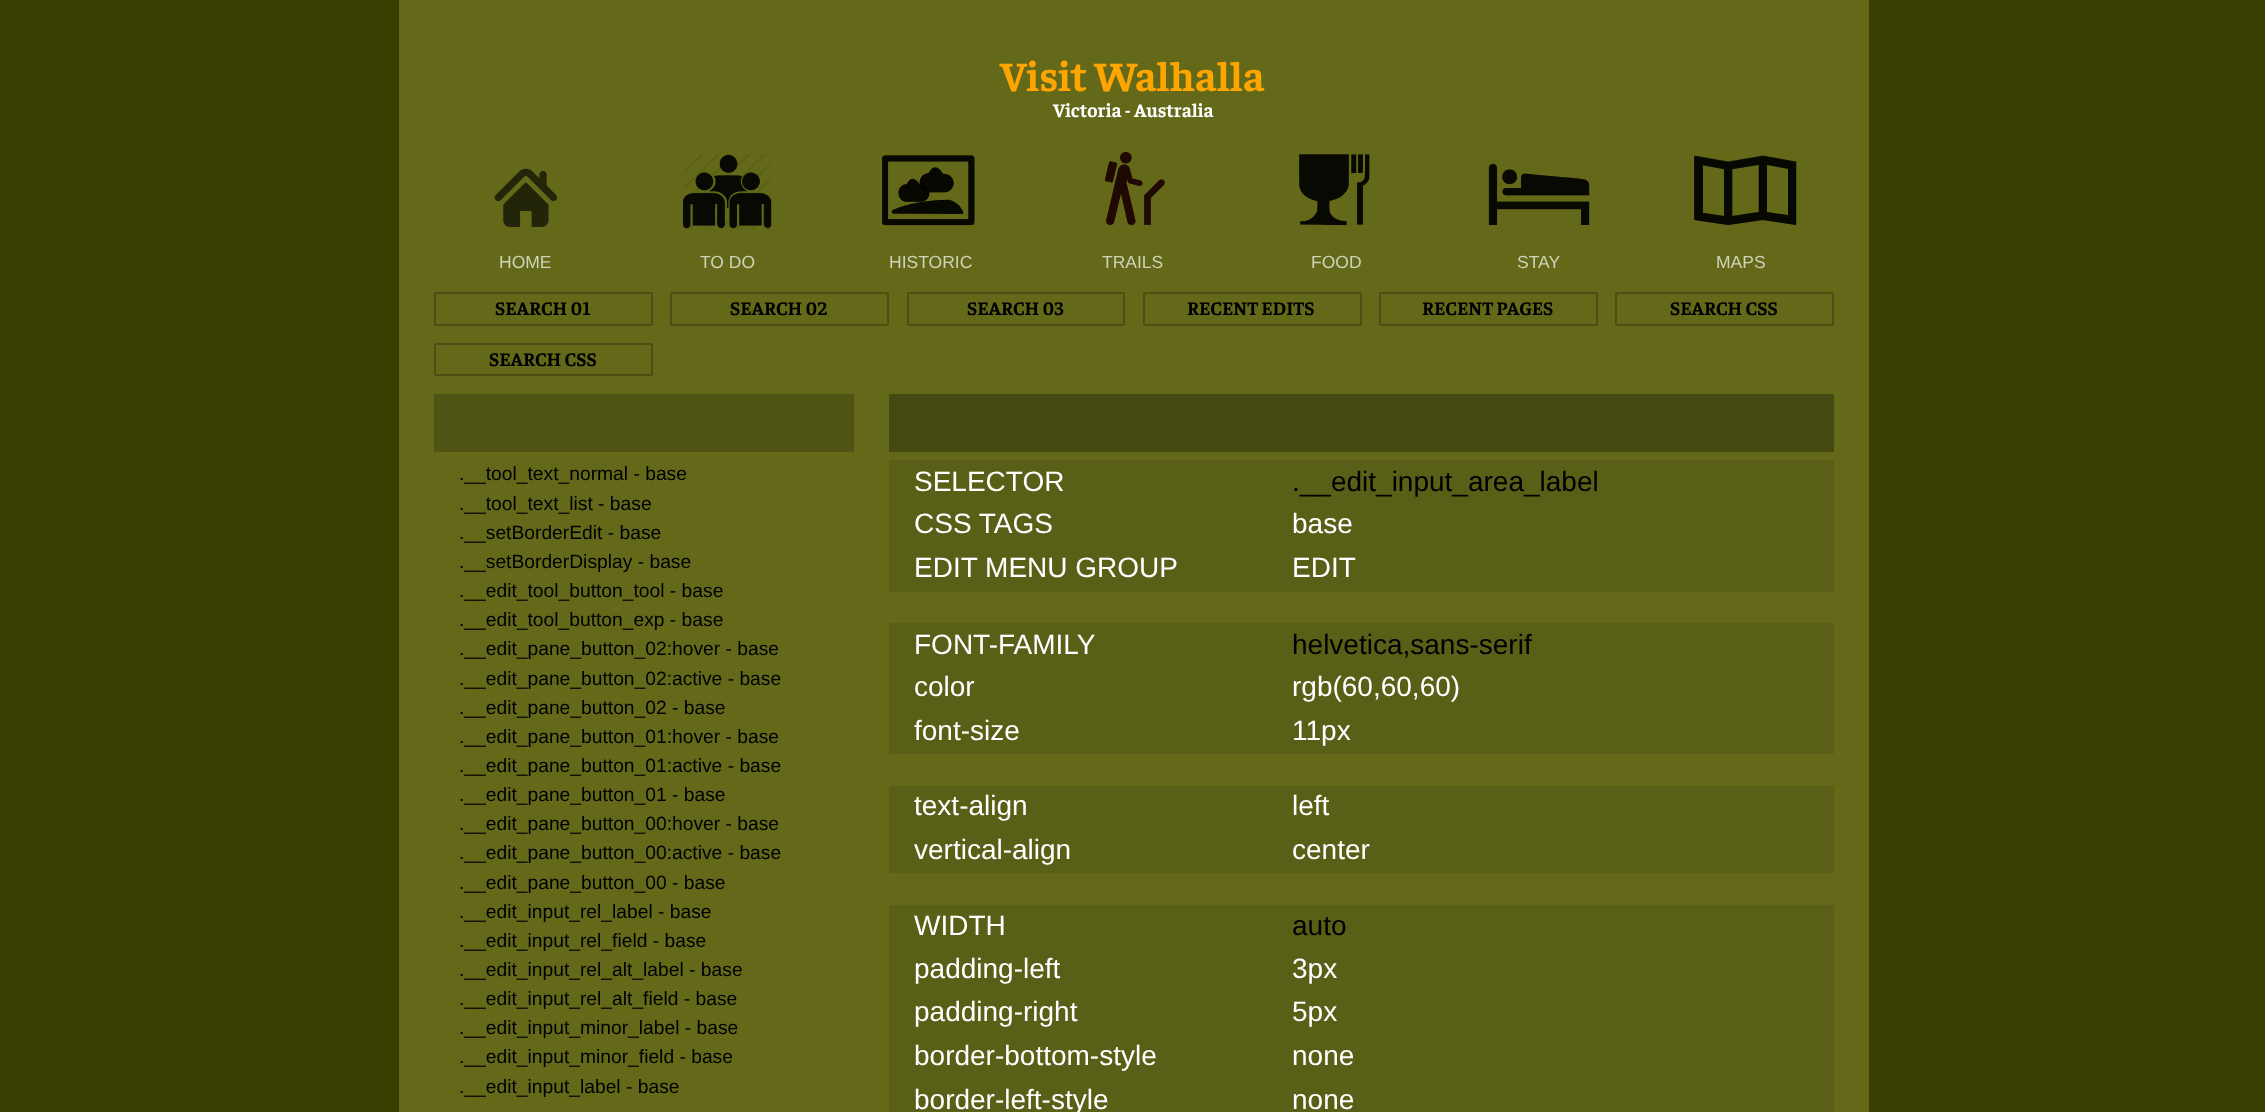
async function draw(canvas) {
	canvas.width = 2265;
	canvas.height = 1112;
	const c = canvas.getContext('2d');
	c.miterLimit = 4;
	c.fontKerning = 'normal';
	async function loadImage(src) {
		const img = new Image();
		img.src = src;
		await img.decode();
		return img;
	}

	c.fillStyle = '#383d00';
	c.fillRect(0, 0, 2265, 1112);
	c.fillStyle = '#636919';
	c.fillRect(399, 0, 1470, 1112);
	c.font = 'bold 42px Faustina';
	c.fillStyle = '#ffa500';
	c.fillText('Visit Walhalla', 1000, 91);
	c.font = 'bold 19.25px Faustina';
	c.fillStyle = '#fff';
	c.fillText('Victoria - Australia', 1053, 117);
	c.drawImage(await loadImage('img1.png'), 494, 168, 63, 59);
	c.drawImage(await loadImage('img2.png'), 494, 168, 63, 59);
	c.font = '17.5px Liberation Sans';
	c.fillStyle = '#d0d2ba';
	c.fillText('HOME', 499, 268);
	c.drawImage(await loadImage('img3.png'), 683, 154, 89, 75);
	c.drawImage(await loadImage('img4.png'), 683, 154, 89, 75);
	c.fillText('TO DO', 700, 268);
	c.drawImage(await loadImage('img5.png'), 882, 155, 93, 70);
	c.drawImage(await loadImage('img6.png'), 882, 155, 93, 71);
	c.fillText('HISTORIC', 889, 268);
	c.drawImage(await loadImage('img8.png'), 1105, 152, 60, 73);
	c.drawImage(await loadImage('img7.png'), 1105, 151, 60, 74);
	c.fillText('TRAILS', 1102, 268);
	c.drawImage(await loadImage('img9.png'), 1299, 154, 71, 71);
	c.drawImage(await loadImage('img10.png'), 1299, 154, 71, 72);
	c.fillText('FOOD', 1311, 268);
	c.drawImage(await loadImage('img11.png'), 1488, 163, 102, 62);
	c.fillStyle = '#000000b3';
	c.beginPath();
	c.moveTo(1581, 209);
	c.lineTo(1581, 225);
	c.lineTo(1589, 225);
	c.lineTo(1589, 202);
	c.lineTo(1497, 202);
	c.lineTo(1497, 168);
	c.bezierCurveTo(1497, 166, 1495, 164, 1493, 164);
	c.bezierCurveTo(1491, 164, 1489, 166, 1489, 168);
	c.lineTo(1489, 225);
	c.lineTo(1497, 225);
	c.lineTo(1497, 209);
	c.closePath();
	c.fill();
	c.beginPath();
	c.moveTo(1509.5, 184);
	c.bezierCurveTo(1519.5, 184, 1519.5, 169.5, 1509.5, 169.5);
	c.bezierCurveTo(1500, 169.5, 1500, 184, 1509.5, 184);
	c.closePath();
	c.fill();
	c.beginPath();
	c.moveTo(1589, 195);
	c.bezierCurveTo(1589, 180, 1591, 180, 1574, 178);
	c.lineTo(1535, 175);
	c.bezierCurveTo(1520, 173, 1521, 171, 1521, 188);
	c.lineTo(1505, 188);
	c.bezierCurveTo(1501, 190, 1502, 195, 1506, 195);
	c.closePath();
	c.fill();
	c.fillStyle = '#d0d2ba';
	c.fillText('STAY', 1517, 268);
	c.drawImage(await loadImage('img12.png'), 1694, 155, 103, 70);
	c.fillStyle = '#000000b5';
	c.beginPath();
	c.moveTo(1694, 156);
	c.lineTo(1728, 162);
	c.lineTo(1763, 156);
	c.lineTo(1796, 162);
	c.lineTo(1796, 225);
	c.lineTo(1763, 220);
	c.lineTo(1728, 225);
	c.lineTo(1694, 220);
	c.closePath();
	c.moveTo(1759, 165);
	c.lineTo(1732, 169);
	c.lineTo(1732, 216);
	c.lineTo(1759, 212);
	c.closePath();
	c.moveTo(1724, 169);
	c.lineTo(1703, 165);
	c.lineTo(1703, 213);
	c.lineTo(1724, 216);
	c.closePath();
	c.moveTo(1767, 165);
	c.lineTo(1767, 212);
	c.lineTo(1788, 215);
	c.lineTo(1788, 169);
	c.closePath();
	c.fill('evenodd');
	c.fillStyle = '#d0d2ba';
	c.fillText('MAPS', 1716, 268);
	c.beginPath();
	c.roundRect(435, 293, 217, 32, 1);
	c.strokeStyle = '#4b4f13';
	c.lineWidth = 2;
	c.stroke();
	c.font = 'bold 19.25px Faustina';
	c.fillStyle = '#000';
	c.fillText('SEARCH 01', 495, 315);
	c.beginPath();
	c.roundRect(671, 293, 217, 32, 1);
	c.stroke();
	c.fillText('SEARCH 02', 730, 315);
	c.beginPath();
	c.roundRect(908, 293, 216, 32, 1);
	c.stroke();
	c.fillText('SEARCH 03', 967, 315);
	c.beginPath();
	c.roundRect(1144, 293, 217, 32, 1);
	c.stroke();
	c.fillText('RECENT EDITS', 1187, 315);
	c.beginPath();
	c.roundRect(1380, 293, 217, 32, 1);
	c.stroke();
	c.fillText('RECENT PAGES', 1422, 315);
	c.beginPath();
	c.roundRect(1616, 293, 217, 32, 1);
	c.stroke();
	c.fillText('SEARCH CSS', 1670, 315);
	c.beginPath();
	c.roundRect(435, 344, 217, 31, 1);
	c.stroke();
	c.fillText('SEARCH CSS', 489, 366);
	c.fillStyle = '#4f5414';
	c.fillRect(434, 394, 420, 58);
	c.font = '19.25px Liberation Sans';
	c.fillStyle = '#000';
	for (const [text, x, y] of [
		['.__tool_text_normal - base', 459, 480],
		['.__tool_text_list - base', 459, 510],
		['.__setBorderEdit - base', 459, 539],
		['.__setBorderDisplay - base', 459, 568],
		['.__edit_tool_button_tool - base', 459, 597],
		['.__edit_tool_button_exp - base', 459, 626],
		['.__edit_pane_button_02:hover - base', 459, 655],
		['.__edit_pane_button_02:active - base', 459, 685],
		['.__edit_pane_button_02 - base', 459, 714],
		['.__edit_pane_button_01:hover - base', 459, 743],
		['.__edit_pane_button_01:active - base', 459, 772],
		['.__edit_pane_button_01 - base', 459, 801],
		['.__edit_pane_button_00:hover - base', 459, 830],
		['.__edit_pane_button_00:active - base', 459, 859],
		['.__edit_pane_button_00 - base', 459, 889],
		['.__edit_input_rel_label - base', 459, 918],
		['.__edit_input_rel_field - base', 459, 947],
		['.__edit_input_rel_alt_label - base', 459, 976],
		['.__edit_input_rel_alt_field - base', 459, 1005],
		['.__edit_input_minor_label - base', 459, 1034],
		['.__edit_input_minor_field - base', 459, 1063],
		['.__edit_input_label - base', 459, 1093],
	]) {
		c.fillText(text, x, y);
	}
	c.fillStyle = '#454a12';
	c.fillRect(889, 394, 945, 58);
	c.fillStyle = '#595f17';
	c.fillRect(889, 460, 945, 44);
	c.font = '28px Liberation Sans';
	c.fillStyle = '#fff';
	c.fillText('SELECTOR', 914, 491);
	c.fillStyle = '#000';
	c.fillText('.__edit_input_area_label', 1292, 491);
	c.fillStyle = '#595f17';
	c.fillRect(889, 504, 945, 44);
	c.fillStyle = '#fff';
	c.fillText('CSS TAGS', 914, 533);
	c.fillText('base', 1292, 533);
	c.fillStyle = '#595f17';
	c.fillRect(889, 548, 945, 44);
	c.fillStyle = '#fff';
	c.fillText('EDIT MENU GROUP', 914, 577);
	c.fillText('EDIT', 1292, 577);
	c.fillStyle = '#595f17';
	c.fillRect(889, 623, 945, 44);
	c.fillStyle = '#fff';
	c.fillText('FONT-FAMILY', 914, 654);
	c.fillStyle = '#000';
	c.fillText('helvetica,sans-serif', 1292, 654);
	c.fillStyle = '#595f17';
	c.fillRect(889, 667, 945, 44);
	c.fillStyle = '#fff';
	c.fillText('color', 914, 696);
	c.fillText('rgb(60,60,60)', 1292, 696);
	c.fillStyle = '#595f17';
	c.fillRect(889, 711, 945, 43);
	c.fillStyle = '#fff';
	c.fillText('font-size', 914, 740);
	c.fillText('11px', 1292, 740);
	c.fillStyle = '#595f17';
	c.fillRect(889, 786, 945, 44);
	c.fillStyle = '#fff';
	c.fillText('text-align', 914, 815);
	c.fillText('left', 1292, 815);
	c.fillStyle = '#595f17';
	c.fillRect(889, 830, 945, 43);
	c.fillStyle = '#fff';
	c.fillText('vertical-align', 914, 859);
	c.fillText('center', 1292, 859);
	c.fillStyle = '#595f17';
	c.fillRect(889, 905, 945, 44);
	c.fillStyle = '#fff';
	c.fillText('WIDTH', 914, 935);
	c.fillStyle = '#000';
	c.fillText('auto', 1292, 935);
	c.fillStyle = '#595f17';
	c.fillRect(889, 949, 945, 43);
	c.fillStyle = '#fff';
	c.fillText('padding-left', 914, 978);
	c.fillText('3px', 1292, 978);
	c.fillStyle = '#595f17';
	c.fillRect(889, 992, 945, 44);
	c.fillStyle = '#fff';
	c.fillText('padding-right', 914, 1021);
	c.fillText('5px', 1292, 1021);
	c.fillStyle = '#595f17';
	c.fillRect(889, 1036, 945, 44);
	c.fillStyle = '#fff';
	c.fillText('border-bottom-style', 914, 1065);
	c.fillText('none', 1292, 1065);
	c.fillStyle = '#595f17';
	c.fillRect(889, 1080, 945, 32);
	c.fillStyle = '#fff';
	c.fillText('border-left-style', 914, 1109);
	c.fillText('none', 1292, 1109);
}

draw(document.querySelector('canvas'));
